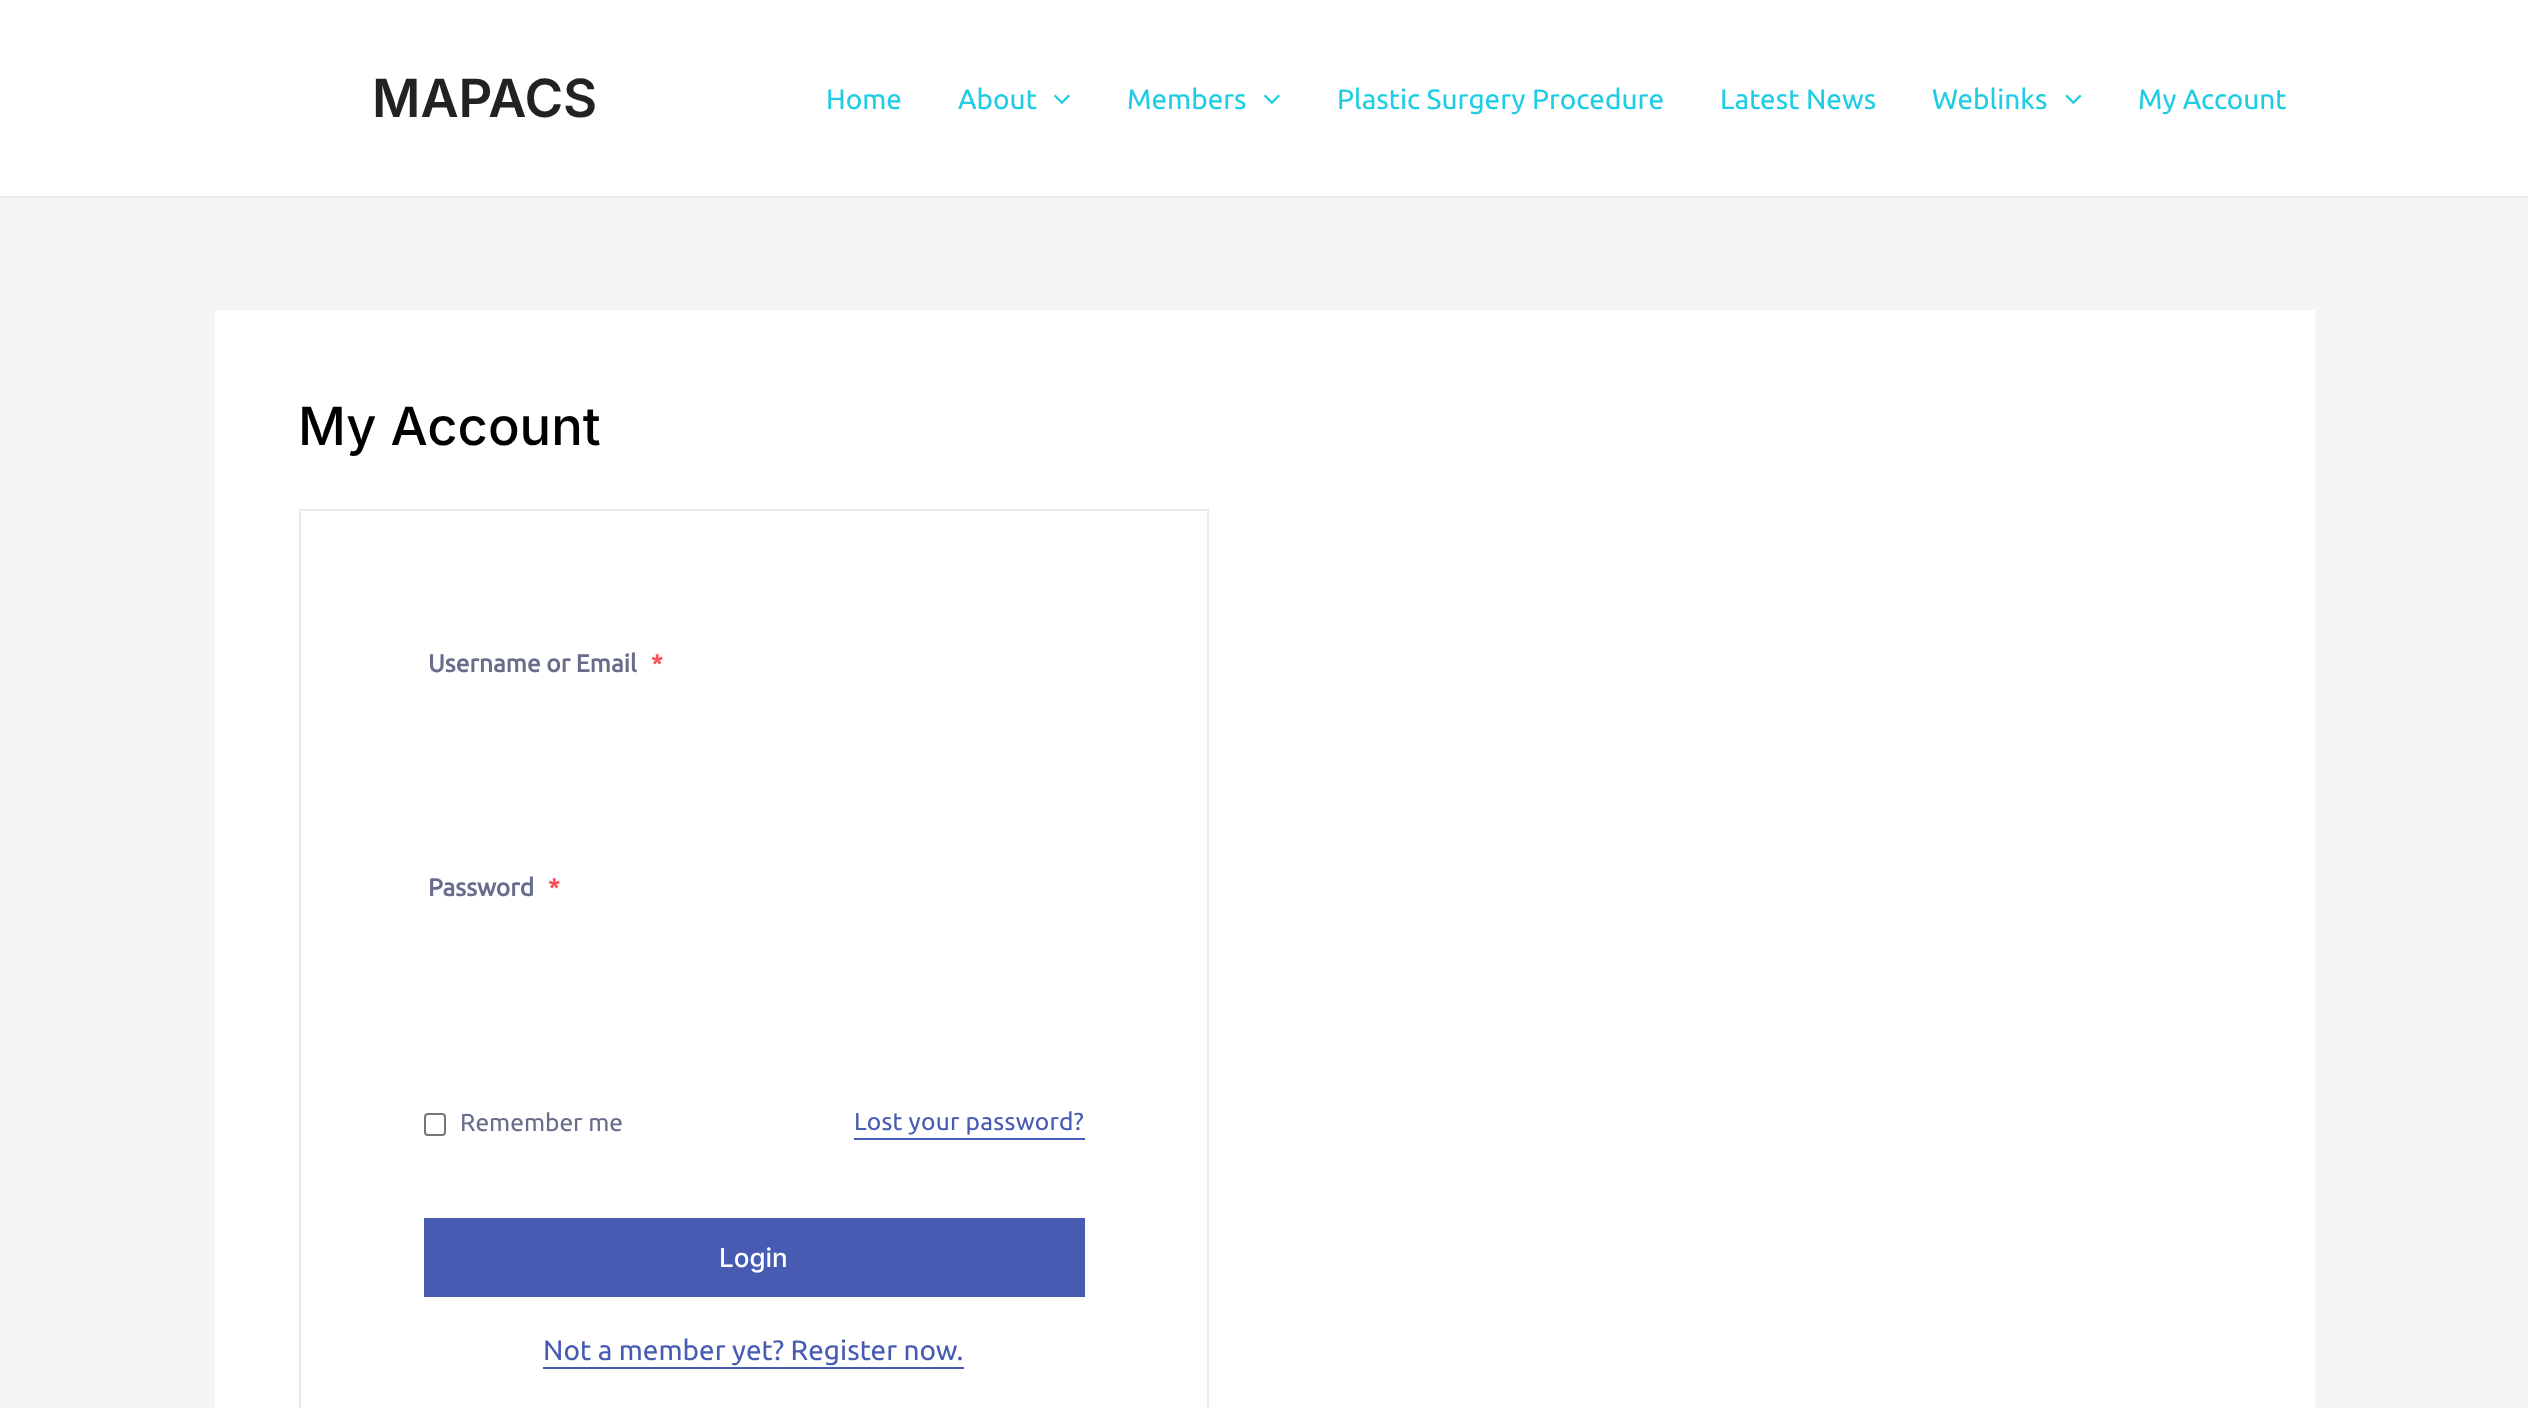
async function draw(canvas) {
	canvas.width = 2528;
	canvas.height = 1408;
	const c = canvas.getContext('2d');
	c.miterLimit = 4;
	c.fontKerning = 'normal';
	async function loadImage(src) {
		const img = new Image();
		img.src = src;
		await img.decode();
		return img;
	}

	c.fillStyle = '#f5f5f5';
	c.fillRect(0, 0, 2528, 1408);
	c.fillStyle = '#fff';
	c.fillRect(0, 0, 2528, 196);
	c.fillStyle = '#eaeaea';
	c.fillRect(0, 196, 2528, 2);
	c.font = '600 52.5px Inter';
	c.fillStyle = '#222';
	c.fillText('MAPACS', 372, 117);
	c.font = '28px Ubuntu';
	c.fillStyle = '#1ecce3';
	c.fillText('Home', 826, 109);
	c.fillText('About', 958, 109);
	c.drawImage(await loadImage('img1.png'), 1054, 94, 16, 11);
	c.fillText('Members', 1127, 109);
	c.drawImage(await loadImage('img1.png'), 1264, 94, 16, 11);
	for (const [text, x, y] of [
		['Plastic Surgery Procedure', 1337, 109],
		['Latest News', 1720, 109],
		['Weblinks', 1932, 109],
	]) {
		c.fillText(text, x, y);
	}
	c.drawImage(await loadImage('img2.png'), 2065, 94, 17, 11);
	c.fillText('My Account', 2138, 109);
	c.fillStyle = '#fff';
	c.fillRect(215, 310, 2100, 1098);
	c.font = '500 52.5px Inter';
	c.fillStyle = '#000';
	c.fillText('My Account', 298, 445);
	c.strokeStyle = '#e9e9e9';
	c.lineWidth = 2;
	c.strokeRect(300, 510, 908, 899);
	c.font = 'bold 24.5px Ubuntu';
	c.fillStyle = '#676d8a';
	c.fillText('Username or Email', 428, 672);
	c.fillStyle = '#ff4f55';
	c.fillText('*', 651, 672);
	c.fillStyle = '#676d8a';
	c.fillText('Password', 428, 896);
	c.fillStyle = '#ff4f55';
	c.fillText('*', 548, 896);
	c.beginPath();
	c.roundRect(425, 1114, 20, 21, 3);
	c.strokeStyle = '#767676';
	c.stroke();
	c.font = '24.5px Ubuntu';
	c.fillStyle = '#676d8a';
	c.fillText('Remember me', 460, 1131);
	c.letterSpacing = '0.25px';
	c.fillStyle = '#475bb2';
	c.fillText('Lost your password?', 854, 1130);
	c.fillRect(854, 1138, 231, 2);
	c.fillRect(424, 1218, 661, 79);
	c.letterSpacing = '0px';
	c.font = '500 26px Inter';
	c.fillStyle = '#fff';
	c.fillText('Login', 719, 1267);
	c.font = '28px Ubuntu';
	c.fillStyle = '#475bb2';
	c.fillText('Not a member yet? Register now.', 543, 1360);
	c.fillRect(543, 1367, 421, 2);
}

draw(document.querySelector('canvas'));
